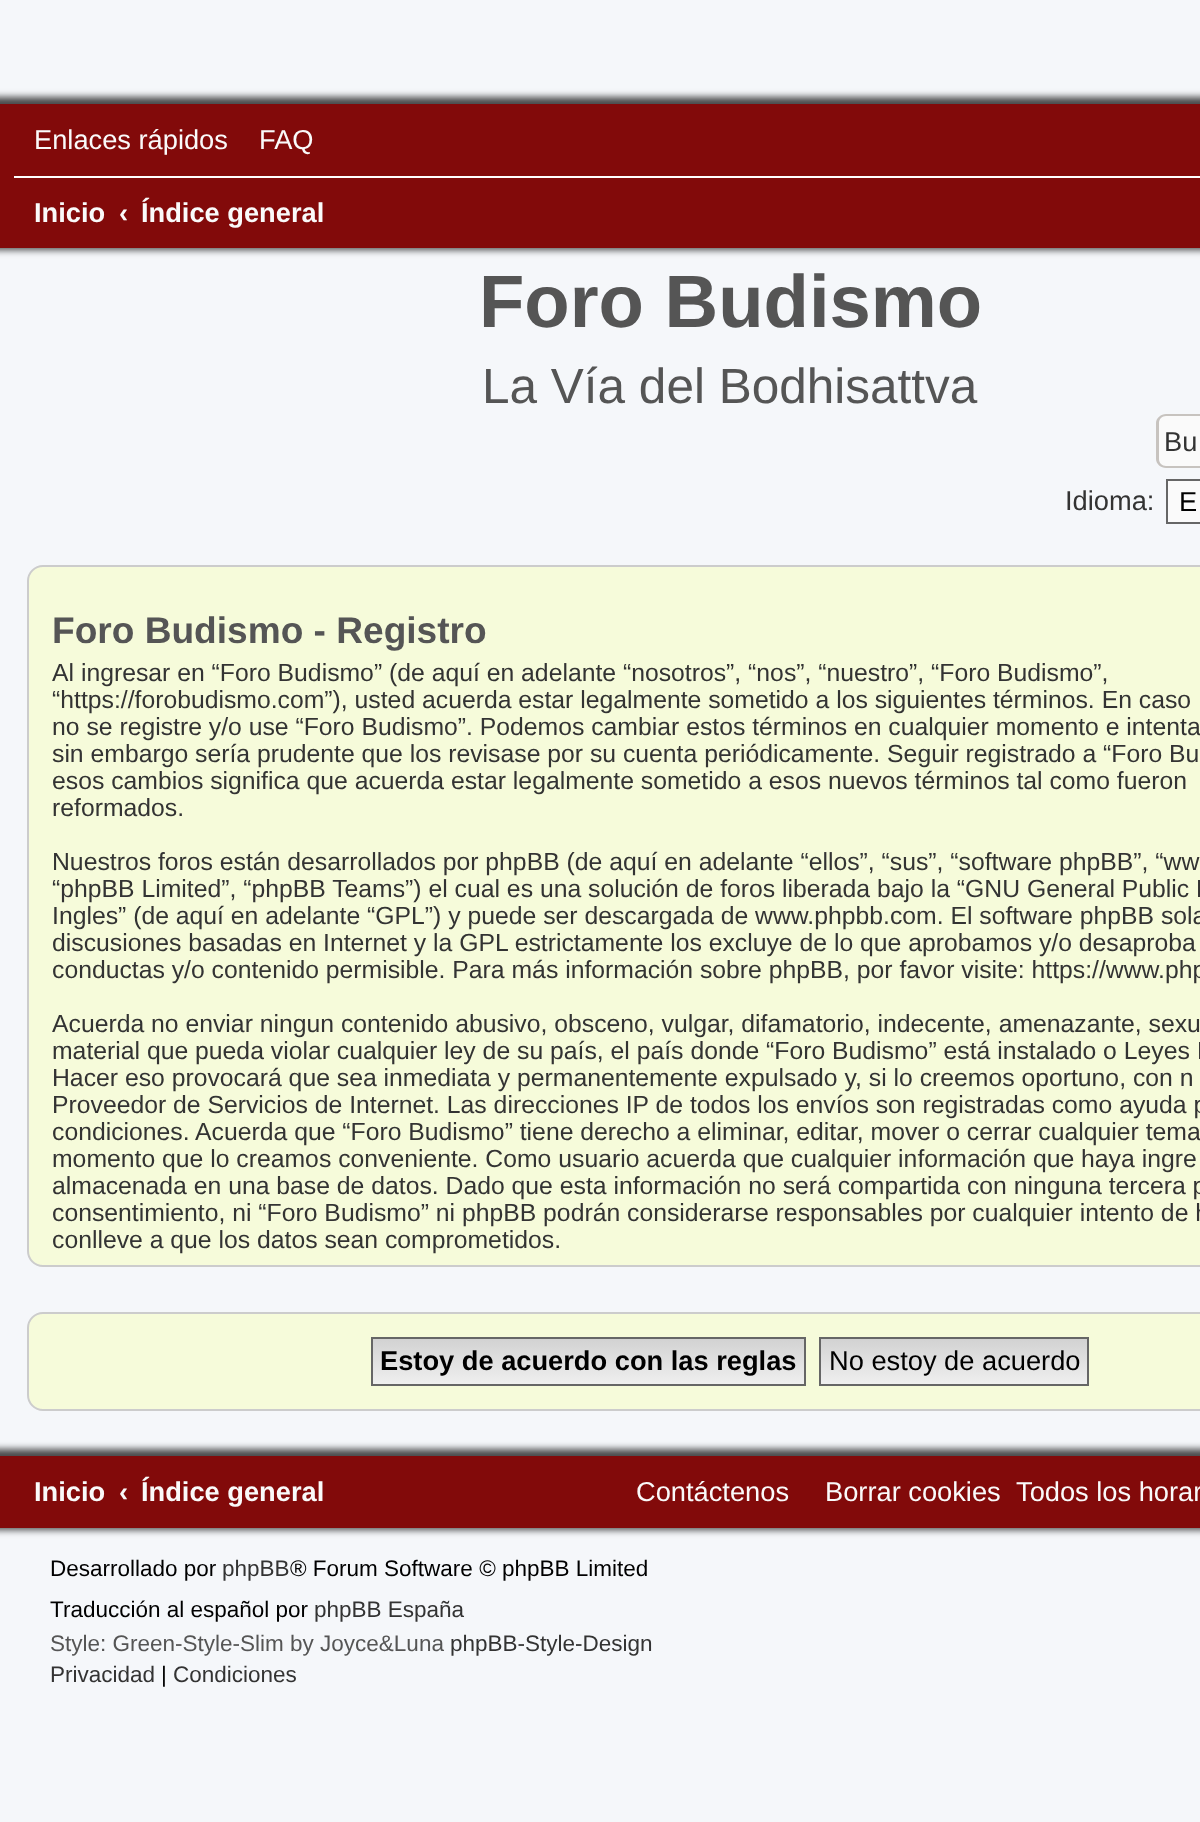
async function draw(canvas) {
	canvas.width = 1200;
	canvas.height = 1822;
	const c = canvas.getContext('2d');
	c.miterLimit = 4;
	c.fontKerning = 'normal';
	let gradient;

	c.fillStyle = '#f5f7fa';
	c.fillRect(0, 0, 1200, 1822);
	c.fillStyle = '#020202b3';
	c.filter = 'blur(3.5px)';
	c.beginPath();
	c.rect(-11, 97, 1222, 153);
	c.fill();
	c.filter = 'none';
	c.fillStyle = '#820a0a';
	c.fillRect(0, 104, 1200, 144);
	c.font = '27.25px Liberation Sans';
	c.fillStyle = '#fafafa';
	c.fillText('Enlaces rápidos', 34, 149);
	c.fillText('FAQ', 259, 149);
	c.fillStyle = '#fff';
	c.fillRect(14, 176, 1186, 2);
	c.font = 'bold 27.25px Liberation Sans';
	c.fillStyle = '#fafafa';
	for (const [text, x, y] of [
		['Inicio', 34, 222],
		['‹', 119, 222],
		['Índice general', 141, 222],
	]) {
		c.fillText(text, x, y);
	}
	c.font = 'bold 74.25px Liberation Sans';
	c.fillStyle = '#555';
	c.fillText('Foro Budismo', 479, 327);
	c.font = '49.5px Liberation Sans';
	c.fillText('La Vía del Bodhisattva', 482, 403);
	c.fillStyle = '#fafafa';
	c.beginPath();
	c.moveTo(1166, 416);
	c.lineTo(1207, 416);
	c.lineTo(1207, 466);
	c.lineTo(1166, 466);
	c.bezierCurveTo(1162, 466, 1159, 463, 1159, 459);
	c.lineTo(1159, 423);
	c.bezierCurveTo(1159, 419, 1162, 416, 1166, 416);
	c.closePath();
	c.fill();
	c.fillStyle = '#c7c3bf';
	c.beginPath();
	c.moveTo(1166, 414);
	c.lineTo(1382, 414);
	c.lineTo(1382, 468);
	c.lineTo(1166, 468);
	c.bezierCurveTo(1161, 468, 1156, 464, 1156, 459);
	c.lineTo(1156, 423);
	c.bezierCurveTo(1156, 418, 1161, 414, 1166, 414);
	c.closePath();
	c.moveTo(1166, 416);
	c.lineTo(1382, 416);
	c.lineTo(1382, 466);
	c.lineTo(1166, 466);
	c.bezierCurveTo(1162, 466, 1159, 463, 1159, 459);
	c.lineTo(1159, 423);
	c.bezierCurveTo(1159, 419, 1162, 416, 1166, 416);
	c.closePath();
	c.fill('evenodd');
	c.font = '27.25px Liberation Sans';
	c.fillStyle = '#333';
	c.fillText('Bu', 1164, 451);
	c.fillText('Idioma:', 1065, 510);
	c.fillStyle = '#fafafa';
	c.beginPath();
	c.rect(1167, 480, 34, 43);
	c.fill();
	c.strokeStyle = '#666';
	c.lineWidth = 2;
	c.stroke();
	c.fillStyle = '#000';
	c.fillText('E', 1179, 511);
	c.fillStyle = '#f6fbda';
	c.beginPath();
	c.roundRect(28, 566, 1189, 700, 15);
	c.fill();
	c.strokeStyle = '#ccc';
	c.stroke();
	c.font = 'bold 37.1px Liberation Sans';
	c.fillStyle = '#555';
	c.fillText('Foro Budismo - Registro', 52, 643);
	c.font = '24.75px Liberation Sans';
	c.fillStyle = '#333';
	for (const [text, x, y] of [
		['Al ingresar en “Foro Budismo” (de aquí en adelante “nosotros”, “nos”, “nuestro”, “Foro Budismo”,', 52, 681],
		['“https://forobudismo.com”), usted acuerda estar legalmente sometido a los siguientes términos. En caso', 52, 708],
		['no se registre y/o use “Foro Budismo”. Podemos cambiar estos términos en cualquier momento e intenta', 52, 735],
		['sin embargo sería prudente que los revisase por su cuenta periódicamente. Seguir registrado a “Foro Bu', 52, 762],
		['esos cambios significa que acuerda estar legalmente sometido a esos nuevos términos tal como fueron', 52, 789],
		['reformados.', 52, 816],
		['Nuestros foros están desarrollados por phpBB (de aquí en adelante “ellos”, “sus”, “software phpBB”, “ww', 52, 870],
		['“phpBB Limited”, “phpBB Teams”) el cual es una solución de foros liberada bajo la “GNU General Public L', 52, 897],
		['Ingles” (de aquí en adelante “GPL”) y puede ser descargada de www.phpbb.com. El software phpBB sola', 52, 924],
		['discusiones basadas en Internet y la GPL estrictamente los excluye de lo que aprobamos y/o desaproba', 52, 951],
		['conductas y/o contenido permisible. Para más información sobre phpBB, por favor visite: https://www.php', 52, 978],
		['Acuerda no enviar ningun contenido abusivo, obsceno, vulgar, difamatorio, indecente, amenazante, sexu', 52, 1032],
		['material que pueda violar cualquier ley de su país, el país donde “Foro Budismo” está instalado o Leyes I', 52, 1059],
		['Hacer eso provocará que sea inmediata y permanentemente expulsado y, si lo creemos oportuno, con n', 52, 1086],
		['Proveedor de Servicios de Internet. Las direcciones IP de todos los envíos son registradas como ayuda p', 52, 1113],
		['condiciones. Acuerda que “Foro Budismo” tiene derecho a eliminar, editar, mover o cerrar cualquier tema', 52, 1140],
		['momento que lo creamos conveniente. Como usuario acuerda que cualquier información que haya ingre', 52, 1167],
		['almacenada en una base de datos. Dado que esta información no será compartida con ninguna tercera p', 52, 1194],
		['consentimiento, ni “Foro Budismo” ni phpBB podrán considerarse responsables por cualquier intento de h', 52, 1221],
		['conlleve a que los datos sean comprometidos.', 52, 1248],
	]) {
		c.fillText(text, x, y);
	}
	c.fillStyle = '#f6fbda';
	c.beginPath();
	c.roundRect(28, 1313, 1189, 97, 15);
	c.fill();
	c.stroke();
	gradient = c.createLinearGradient(588, 1339, 588, 1384);
	gradient.addColorStop(0, '#d2d2d2');
	gradient.addColorStop(1, '#efefef');
	c.fillStyle = gradient;
	c.fillRect(373, 1339, 431, 45);
	c.strokeStyle = '#666';
	c.strokeRect(372, 1338, 433, 47);
	c.font = 'bold 27.25px Liberation Sans';
	c.fillStyle = '#000';
	c.fillText('Estoy de acuerdo con las reglas', 380, 1370);
	gradient = c.createLinearGradient(954, 1339, 954, 1384);
	gradient.addColorStop(0, '#d2d2d2');
	gradient.addColorStop(1, '#efefef');
	c.fillStyle = gradient;
	c.fillRect(821, 1339, 266, 45);
	c.strokeRect(820, 1338, 268, 47);
	c.font = '27.25px Liberation Sans';
	c.fillStyle = '#000';
	c.fillText('No estoy de acuerdo', 829, 1370);
	c.fillStyle = '#020202b3';
	c.filter = 'blur(3.5px)';
	c.beginPath();
	c.rect(-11, 1449, 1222, 81);
	c.fill();
	c.filter = 'none';
	c.fillStyle = '#820a0a';
	c.fillRect(0, 1456, 1200, 72);
	c.font = 'bold 27.25px Liberation Sans';
	c.fillStyle = '#fafafa';
	for (const [text, x, y] of [
		['Inicio', 34, 1501],
		['‹', 119, 1501],
		['Índice general', 141, 1501],
	]) {
		c.fillText(text, x, y);
	}
	c.font = '27.25px Liberation Sans';
	for (const [text, x, y] of [
		['Contáctenos', 636, 1501],
		['Borrar cookies', 825, 1501],
		['Todos los horar', 1016, 1501],
	]) {
		c.fillText(text, x, y);
	}
	c.font = '22.5px Liberation Sans';
	c.fillStyle = '#000';
	c.fillText('Desarrollado por', 50, 1576);
	c.fillStyle = '#333';
	c.fillText('phpBB', 222, 1576);
	c.fillStyle = '#000';
	c.fillText('® Forum Software © phpBB Limited', 290, 1576);
	c.fillText('Traducción al español por', 50, 1617);
	c.fillStyle = '#333';
	c.fillText('phpBB España', 314, 1617);
	c.fillStyle = '#555';
	c.fillText('Style: Green-Style-Slim by Joyce&Luna', 50, 1651);
	c.fillStyle = '#333';
	c.fillText('phpBB-Style-Design', 450, 1651);
	c.fillText('Privacidad', 50, 1682);
	c.fillStyle = '#000';
	c.fillText('|', 161, 1682);
	c.fillStyle = '#333';
	c.fillText('Condiciones', 173, 1682);
}

draw(document.querySelector('canvas'));
